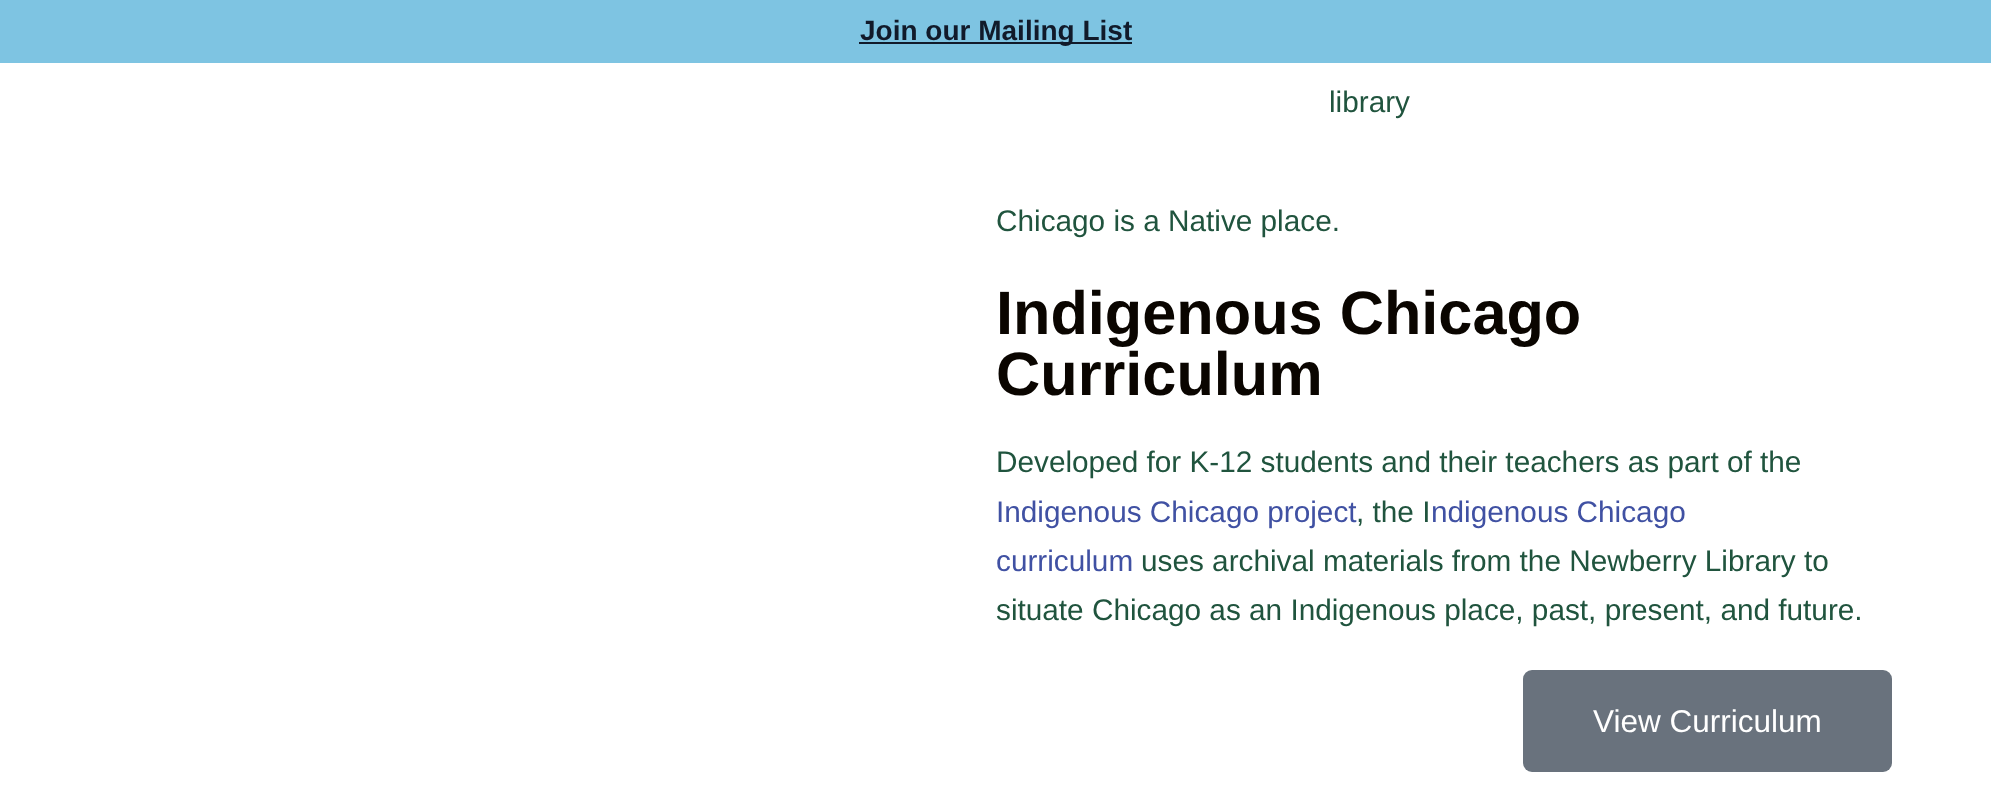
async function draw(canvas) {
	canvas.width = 1991;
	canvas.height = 794;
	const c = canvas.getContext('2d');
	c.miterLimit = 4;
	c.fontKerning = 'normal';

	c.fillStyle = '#fff';
	c.fillRect(0, 0, 1991, 794);
	c.fillStyle = '#7ec4e2';
	c.fillRect(0, 0, 1991, 63);
	c.fillStyle = '#111a2a';
	c.fillRect(859, 42, 273, 2);
	c.font = 'bold 28px Liberation Sans';
	c.fillText('Join our Mailing List', 860, 40);
	c.font = '29.75px Liberation Sans';
	c.fillStyle = '#20543e';
	c.fillText('library', 1329, 112);
	c.fillText('Chicago is a Native place.', 996, 231);
	c.font = 'bold 61.25px Liberation Sans';
	c.fillStyle = '#0a0500';
	c.fillText('Indigenous Chicago', 996, 334);
	c.fillText('Curriculum', 996, 395);
	c.font = '29.75px Liberation Sans';
	c.fillStyle = '#20543e';
	c.fillText('Developed for K-12 students and their teachers as part of the', 996, 472);
	c.fillStyle = '#4051a3';
	c.fillText('Indigenous Chicago project', 996, 522);
	c.fillStyle = '#20543e';
	c.fillText(', the I', 1356, 522);
	c.fillStyle = '#4051a3';
	c.fillText('ndigenous Chicago', 1431, 522);
	c.fillText('curriculum', 996, 571);
	c.fillStyle = '#20543e';
	c.fillText('uses archival materials from the Newberry Library to', 1141, 571);
	c.fillText('situate Chicago as an Indigenous place, past, present, and future.', 996, 620);
	c.fillStyle = '#69727d';
	c.beginPath();
	c.roundRect(1523, 670, 369, 102, 9);
	c.fill();
	c.font = '31.5px Liberation Sans';
	c.fillStyle = '#fff';
	c.fillText('View Curriculum', 1593, 732);
}

draw(document.querySelector('canvas'));
